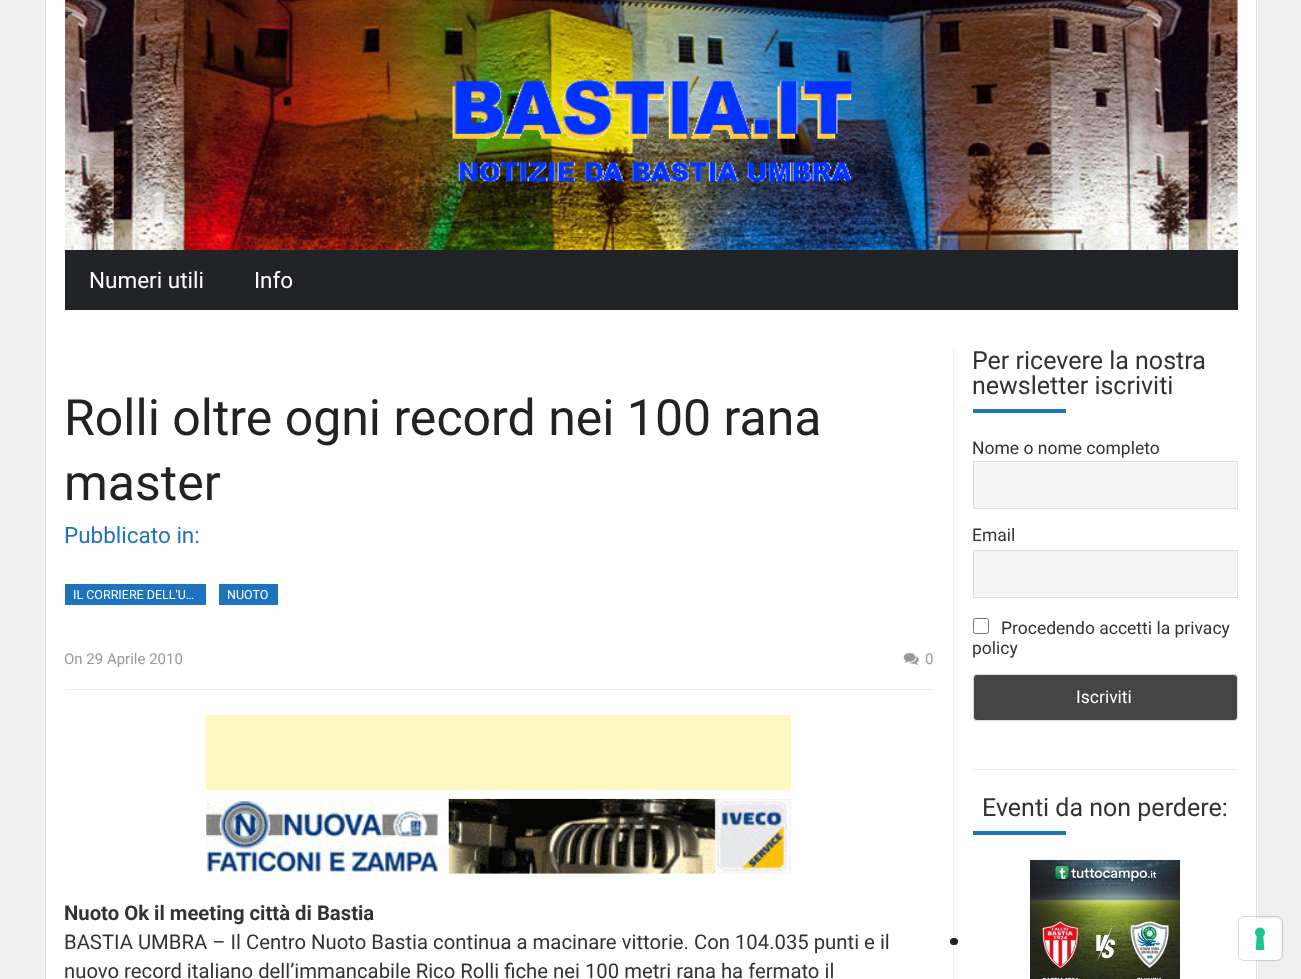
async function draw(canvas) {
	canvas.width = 1301;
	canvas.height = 979;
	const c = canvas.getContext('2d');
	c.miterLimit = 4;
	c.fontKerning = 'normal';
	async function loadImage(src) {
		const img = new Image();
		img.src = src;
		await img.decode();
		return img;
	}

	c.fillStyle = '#efefef';
	c.fillRect(0, 0, 1301, 979);
	for (const [x, y, w, h, color] of [
		[46, 0, 1212, 979, '#fff'],
		[1256, 0, 1, 979, '#dfdfdf'],
		[45, 0, 1, 979, '#dfdfdf'],
	]) {
		c.fillStyle = color;
		c.fillRect(x, y, w, h);
	}
	c.drawImage(await loadImage('img1.png'), 65, 0, 1173, 250);
	c.drawImage(await loadImage('img2.png'), 452, 79, 400, 103);
	c.fillStyle = '#212327';
	c.fillRect(65, 250, 1173, 60);
	c.font = '22.5px Roboto';
	c.fillStyle = '#fff';
	c.fillText('Numeri utili', 89, 288);
	c.fillText('Info', 254, 288);
	c.fillStyle = '#efefef';
	c.fillRect(953, 348, 1, 631);
	c.font = '50px Roboto';
	c.fillStyle = '#222';
	c.fillText('Rolli oltre ogni record nei 100 rana', 64, 435);
	c.fillText('master', 64, 500);
	c.font = '22.5px Roboto';
	c.fillStyle = '#1e73be';
	c.fillText('Pubblicato in:', 64, 543);
	c.fillRect(65, 584, 141, 21);
	c.font = '12.5px Roboto';
	c.fillStyle = '#fff';
	c.fillText('IL CORRIERE DELL\'U…', 73, 599);
	c.fillStyle = '#1e73be';
	c.fillRect(219, 584, 59, 21);
	c.fillStyle = '#fff';
	c.fillText('NUOTO', 227, 599);
	c.fillStyle = '#efefef';
	c.fillRect(65, 689, 869, 1);
	c.font = '15px Roboto';
	c.fillStyle = '#999';
	c.fillText('On 29 Aprile 2010', 64, 664);
	c.drawImage(await loadImage('img3.png'), 903, 653, 16, 12);
	c.fillText('0', 925, 664);
	c.fillStyle = '#fff9c0';
	c.fillRect(206, 715, 585, 75);
	c.drawImage(await loadImage('img4.png'), 206, 798, 586, 76);
	c.font = 'bold 20.3px Roboto';
	c.fillStyle = '#333';
	c.fillText('Nuoto Ok il meeting città di Bastia', 64, 920);
	c.font = '20.3px Roboto';
	c.fillText('BASTIA UMBRA – Il Centro Nuoto Bastia continua a macinare vittorie. Con 104.035 punti e il', 64, 949);
	c.fillText('nuovo record italiano dell’immancabile Rico Rolli fiche nei 100 metri rana ha fermato il', 64, 978);
	c.fillStyle = '#efefef';
	c.fillRect(973, 769, 265, 1);
	c.font = '25px Roboto';
	c.fillStyle = '#333';
	c.fillText('Per ricevere la nostra', 972, 369);
	c.fillText('newsletter iscriviti', 972, 394);
	c.fillStyle = '#1e73be';
	c.fillRect(973, 409, 93, 4);
	c.font = '17.5px Roboto';
	c.fillStyle = '#333';
	c.fillText('Nome o nome completo', 972, 454);
	c.fillStyle = '#f4f4f4';
	c.fillRect(974, 463, 262, 45);
	c.strokeStyle = '#ddd';
	c.strokeRect(973.5, 461.5, 264, 47);
	c.fillStyle = '#333';
	c.fillText('Email', 972, 541);
	c.fillStyle = '#f4f4f4';
	c.fillRect(974, 551, 262, 45);
	c.strokeRect(973.5, 550.5, 264, 47);
	c.beginPath();
	c.roundRect(973.5, 618.5, 15, 15, 2);
	c.strokeStyle = '#767676';
	c.stroke();
	c.fillStyle = '#333';
	c.fillText('Procedendo accetti la privacy', 1001, 634);
	c.fillText('policy', 972, 654);
	c.fillStyle = '#444';
	c.beginPath();
	c.roundRect(973.5, 674.5, 264, 46, 3.5);
	c.fill();
	c.strokeStyle = '#ddd';
	c.stroke();
	c.fillStyle = '#fff';
	c.fillText('Iscriviti', 1076, 703);
	c.font = '25px Roboto';
	c.fillStyle = '#333';
	c.fillText('Eventi da non perdere:', 982, 816);
	c.fillStyle = '#1e73be';
	c.fillRect(973, 831, 93, 4);
	c.fillStyle = '#212121';
	c.beginPath();
	c.roundRect(950, 938, 8, 7, 3.5);
	c.fill();
	c.drawImage(await loadImage('img5.png'), 1030, 860, 150, 119);
	c.beginPath();
	c.roundRect(1238.5, 916.5, 44, 44, 5.5);
	c.strokeStyle = '#00000026';
	c.stroke();
	c.fillStyle = '#fff';
	c.beginPath();
	c.roundRect(1239, 918, 42, 42, 5);
	c.fill();
	c.drawImage(await loadImage('img6.png'), 1255, 927, 10, 23);
}

draw(document.querySelector('canvas'));
